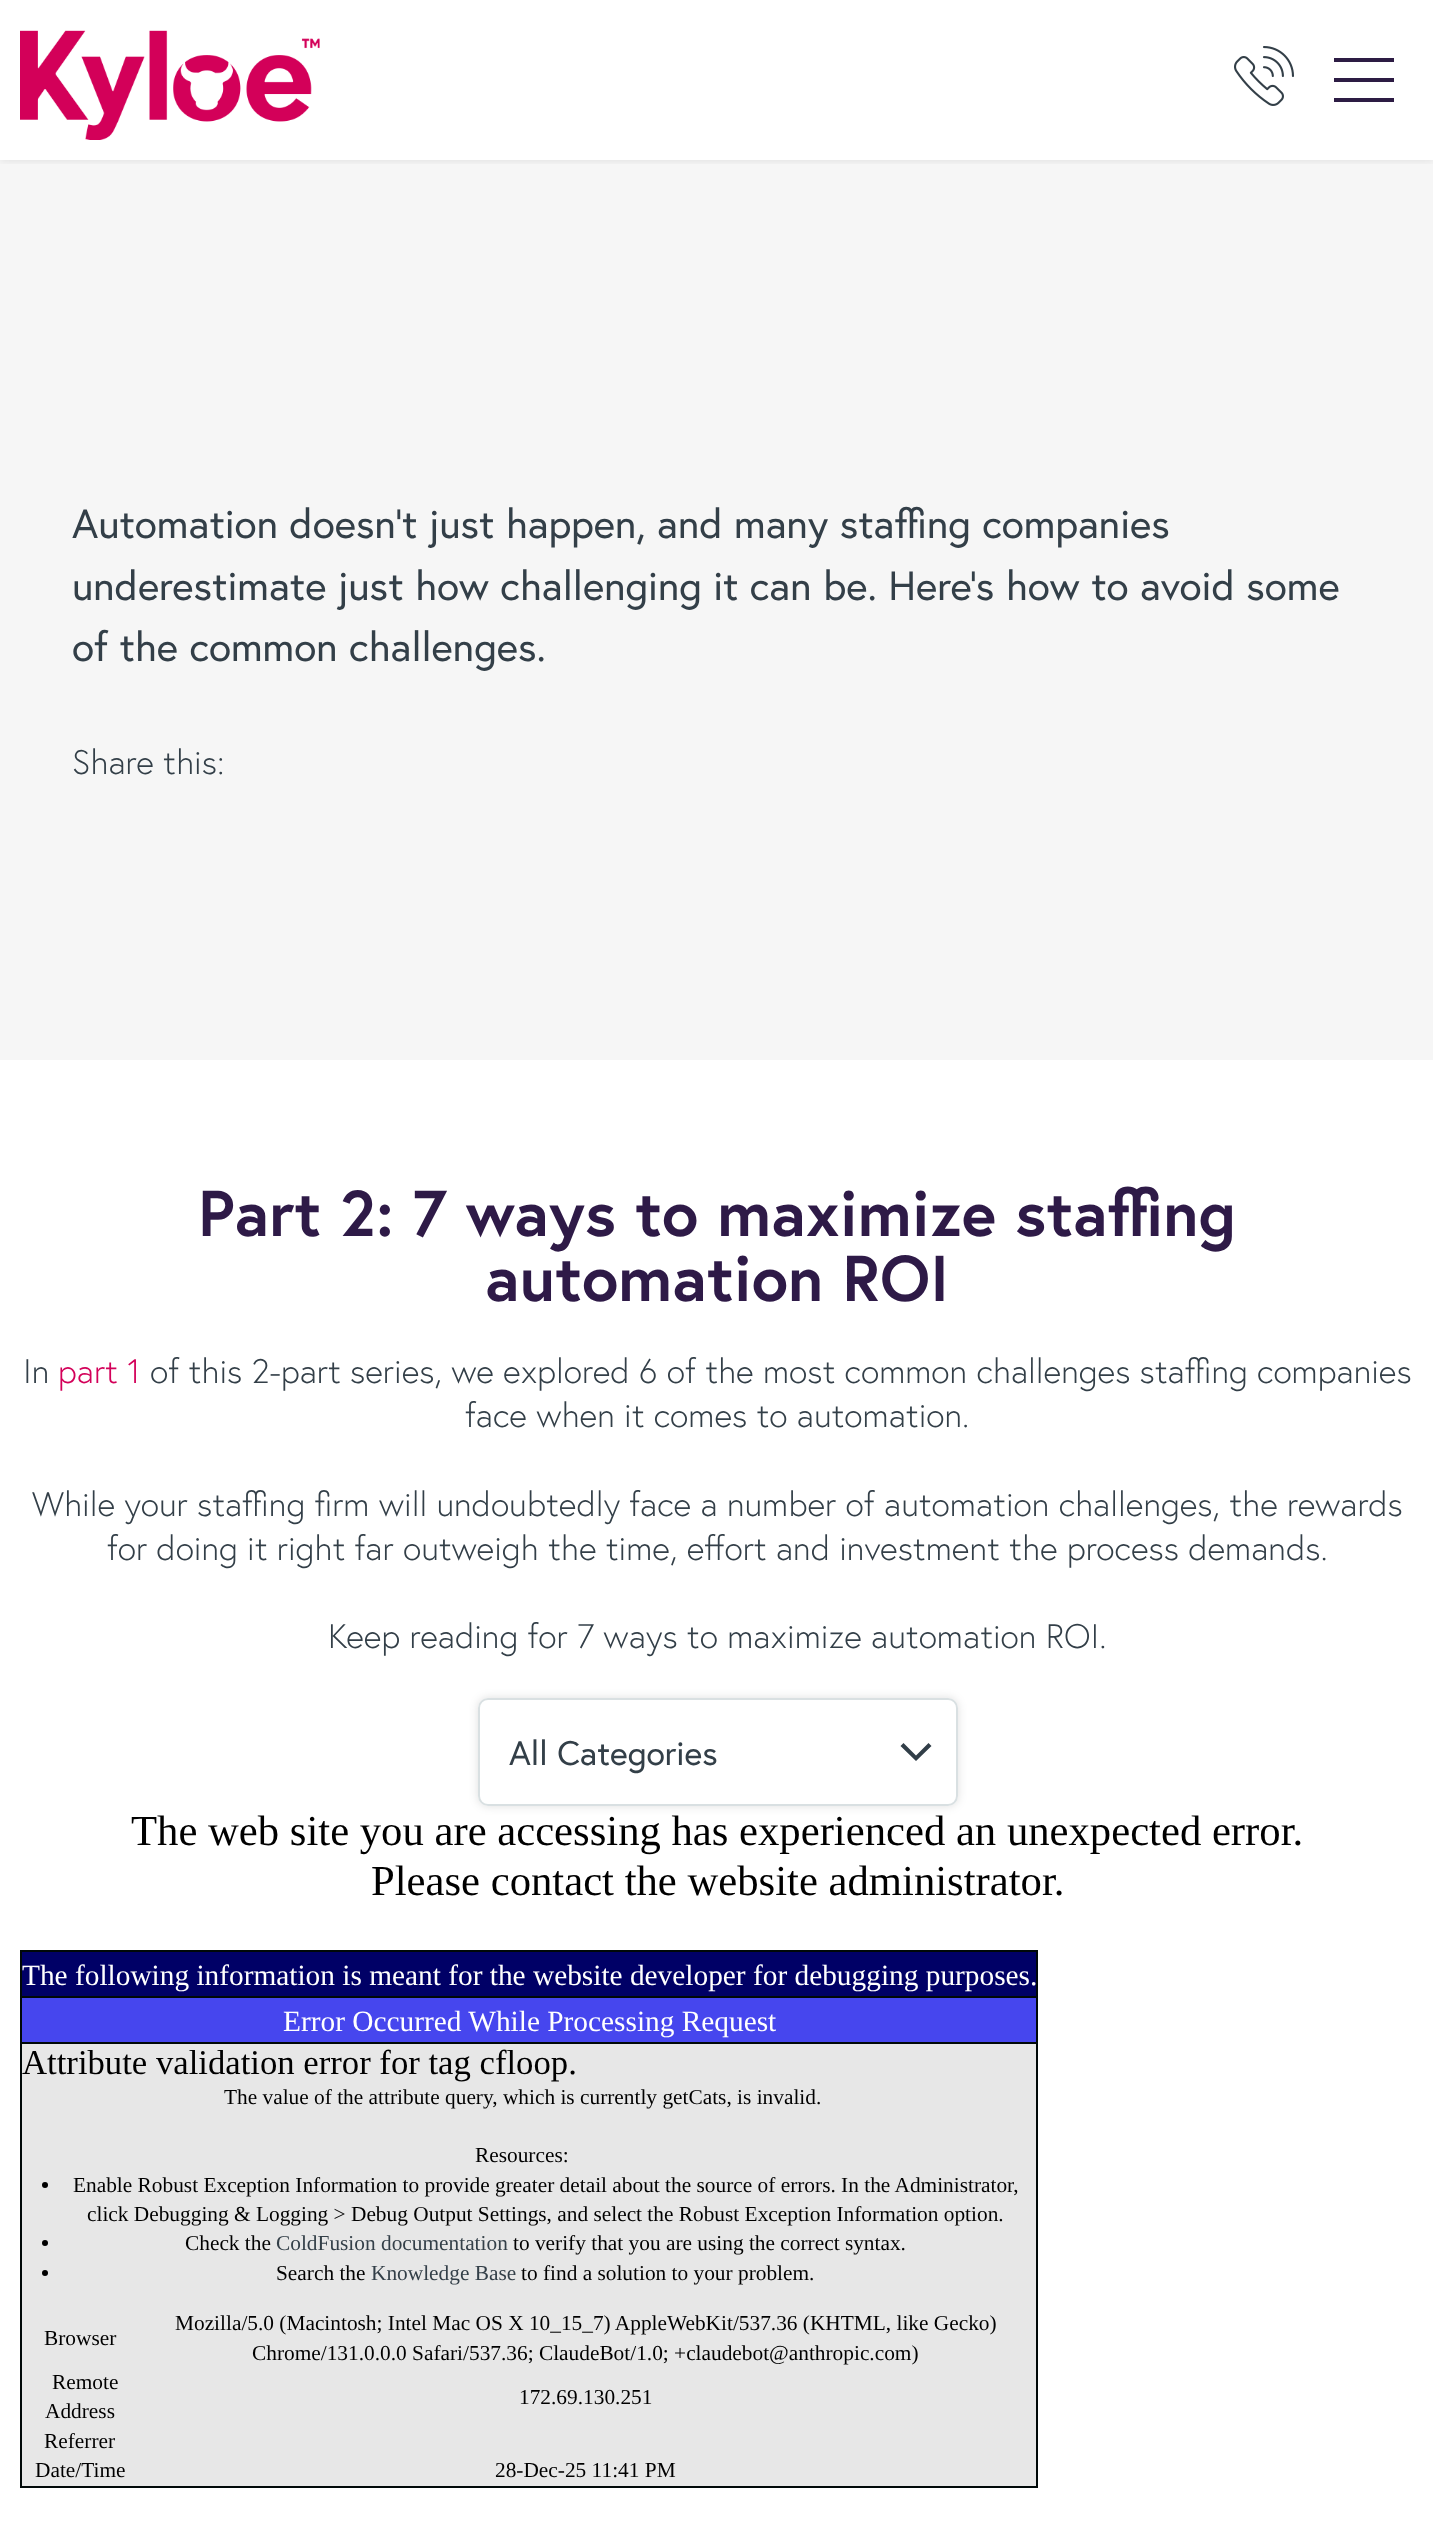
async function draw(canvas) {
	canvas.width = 1433;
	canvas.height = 2528;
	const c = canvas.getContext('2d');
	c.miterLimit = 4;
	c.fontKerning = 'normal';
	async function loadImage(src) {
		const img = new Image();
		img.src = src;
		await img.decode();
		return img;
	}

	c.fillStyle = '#fff';
	c.fillRect(0, 0, 1433, 2528);
	c.fillStyle = '#f6f6f6';
	c.fillRect(0, 160, 1433, 900);
	c.save();
	c.beginPath();
	c.rect(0, 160, 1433, 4);
	c.clip();
	c.fillStyle = '#0000001a';
	c.filter = 'blur(5px)';
	c.beginPath();
	c.rect(0, 0, 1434, 160);
	c.fill();
	c.filter = 'none';
	c.restore();
	c.drawImage(await loadImage('img1.png'), 20, 30, 300, 110);
	c.drawImage(await loadImage('img2.png'), 1234, 46, 60, 60);
	for (const [x, y, w, h, color] of [
		[1334, 78, 60, 4, '#2d1c44'],
		[1334, 58, 60, 4, '#2d1c44'],
		[1334, 98, 60, 4, '#2d1c44'],
	]) {
		c.fillStyle = color;
		c.fillRect(x, y, w, h);
	}
	c.font = '40.8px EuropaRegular';
	c.fillStyle = '#333f48';
	for (const [text, x, y] of [
		['Automation doesn’t just happen, and many staffing companies', 72, 538],
		['underestimate just how challenging it can be. Here\'s how to avoid some', 72, 600],
		['of the common challenges.', 72, 661],
	]) {
		c.fillText(text, x, y);
	}
	c.font = '300 34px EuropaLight';
	c.fillText('Share this:', 72, 774);
	c.font = 'bold 64.6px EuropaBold';
	c.fillStyle = '#2e1a47';
	c.fillText('Part 2: 7 ways to maximize staffing', 198, 1236);
	c.fillText('automation ROI', 485, 1301);
	c.font = '300 34px EuropaLight';
	c.fillStyle = '#333f48';
	c.fillText('In', 23, 1383);
	c.fillStyle = '#d30059';
	c.fillText('part 1', 58, 1383);
	c.fillStyle = '#333f48';
	for (const [text, x, y] of [
		['of this 2-part series, we explored 6 of the most common challenges staffing companies', 150, 1383],
		['face when it comes to automation.', 465, 1427],
		['While your staffing firm will undoubtedly face a number of automation challenges, the rewards', 32, 1516],
		['for doing it right far outweigh the time, effort and investment the process demands.', 107, 1560],
		['Keep reading for 7 ways to maximize automation ROI.', 328, 1648],
	]) {
		c.fillText(text, x, y);
	}
	c.fillStyle = '#00000021';
	c.filter = 'blur(5px)';
	c.beginPath();
	c.roundRect(478, 1698, 480, 108, 10);
	c.fill();
	c.filter = 'none';
	c.fillStyle = '#fff';
	c.beginPath();
	c.roundRect(478, 1698, 480, 108, 10);
	c.fill();
	c.fillStyle = '#313e48';
	c.beginPath();
	c.moveTo(916, 1761);
	c.lineTo(900.5, 1746);
	c.lineTo(903.5, 1743);
	c.lineTo(916, 1755.5);
	c.lineTo(928.5, 1743);
	c.lineTo(931.5, 1746);
	c.closePath();
	c.fill();
	c.beginPath();
	c.roundRect(479, 1699, 478, 106, 9);
	c.strokeStyle = '#d9e0e2';
	c.lineWidth = 2;
	c.stroke();
	c.font = '34px EuropaRegular';
	c.fillStyle = '#333f48';
	c.fillText('All Categories', 509, 1765);
	c.font = '42.7px Liberation Serif';
	c.fillStyle = '#000';
	c.fillText('The web site you are accessing has experienced an unexpected error.', 131, 1845);
	c.fillText('Please contact the website administrator.', 371, 1895);
	for (const [x, y, w, h, color] of [
		[22, 2044, 1014, 442, '#e7e7e7'],
		[20, 1950, 1018, 2, '#000808'],
		[1036, 1950, 2, 538, '#000808'],
		[20, 2486, 1018, 2, '#000808'],
		[20, 1950, 2, 538, '#000808'],
		[22, 1952, 1014, 44, '#006'],
	]) {
		c.fillStyle = color;
		c.fillRect(x, y, w, h);
	}
	c.font = '29.35px Liberation Serif';
	c.fillStyle = '#fff';
	c.fillText('The following information is meant for the website developer for debugging purposes.', 22, 1985);
	c.fillStyle = '#4646ee';
	c.fillRect(22, 1998, 1014, 44);
	c.fillStyle = '#000808';
	c.fillRect(20, 1996, 1018, 2);
	c.fillStyle = '#fff';
	c.fillText('Error Occurred While Processing Request', 283, 2031);
	c.fillStyle = '#000808';
	c.fillRect(20, 2042, 1018, 2);
	c.font = '34.7px Liberation Serif';
	c.fillStyle = '#000';
	c.fillText('Attribute validation error for tag cfloop.', 22, 2074);
	c.font = '21.35px Liberation Serif';
	c.fillText('The value of the attribute query, which is currently getCats, is invalid.', 224, 2104);
	c.fillText('Resources:', 475, 2162);
	c.beginPath();
	c.arc(45, 2185, 3, 0, 2 * Math.PI);
	c.fill();
	c.fillText('Enable Robust Exception Information to provide greater detail about the source of errors. In the Administrator,', 73, 2192);
	c.fillText('click Debugging & Logging > Debug Output Settings, and select the Robust Exception Information option.', 87, 2221);
	c.beginPath();
	c.arc(45, 2243, 3, 0, 2 * Math.PI);
	c.fill();
	c.fillText('Check the', 185, 2250);
	c.fillStyle = '#333f48';
	c.fillText('ColdFusion documentation', 276, 2250);
	c.fillStyle = '#000';
	c.fillText('to verify that you are using the correct syntax.', 513, 2250);
	c.beginPath();
	c.arc(45, 2273, 3, 0, 2 * Math.PI);
	c.fill();
	c.fillText('Search the', 276, 2280);
	c.fillStyle = '#333f48';
	c.fillText('Knowledge Base', 371, 2280);
	c.fillStyle = '#000';
	for (const [text, x, y] of [
		['to find a solution to your problem.', 521, 2280],
		['Browser', 44, 2345],
		['Mozilla/5.0 (Macintosh; Intel Mac OS X 10_15_7) AppleWebKit/537.36 (KHTML, like Gecko)', 175, 2330],
		['Chrome/131.0.0.0 Safari/537.36; ClaudeBot/1.0; +claudebot@anthropic.com)', 252, 2360],
		['Remote', 52, 2389],
		['Address', 45, 2418],
		['172.69.130.251', 519, 2404],
		['Referrer', 44, 2448],
		['Date/Time', 35, 2477],
		['28-Dec-25 11:41 PM', 495, 2477],
	]) {
		c.fillText(text, x, y);
	}
}

draw(document.querySelector('canvas'));
